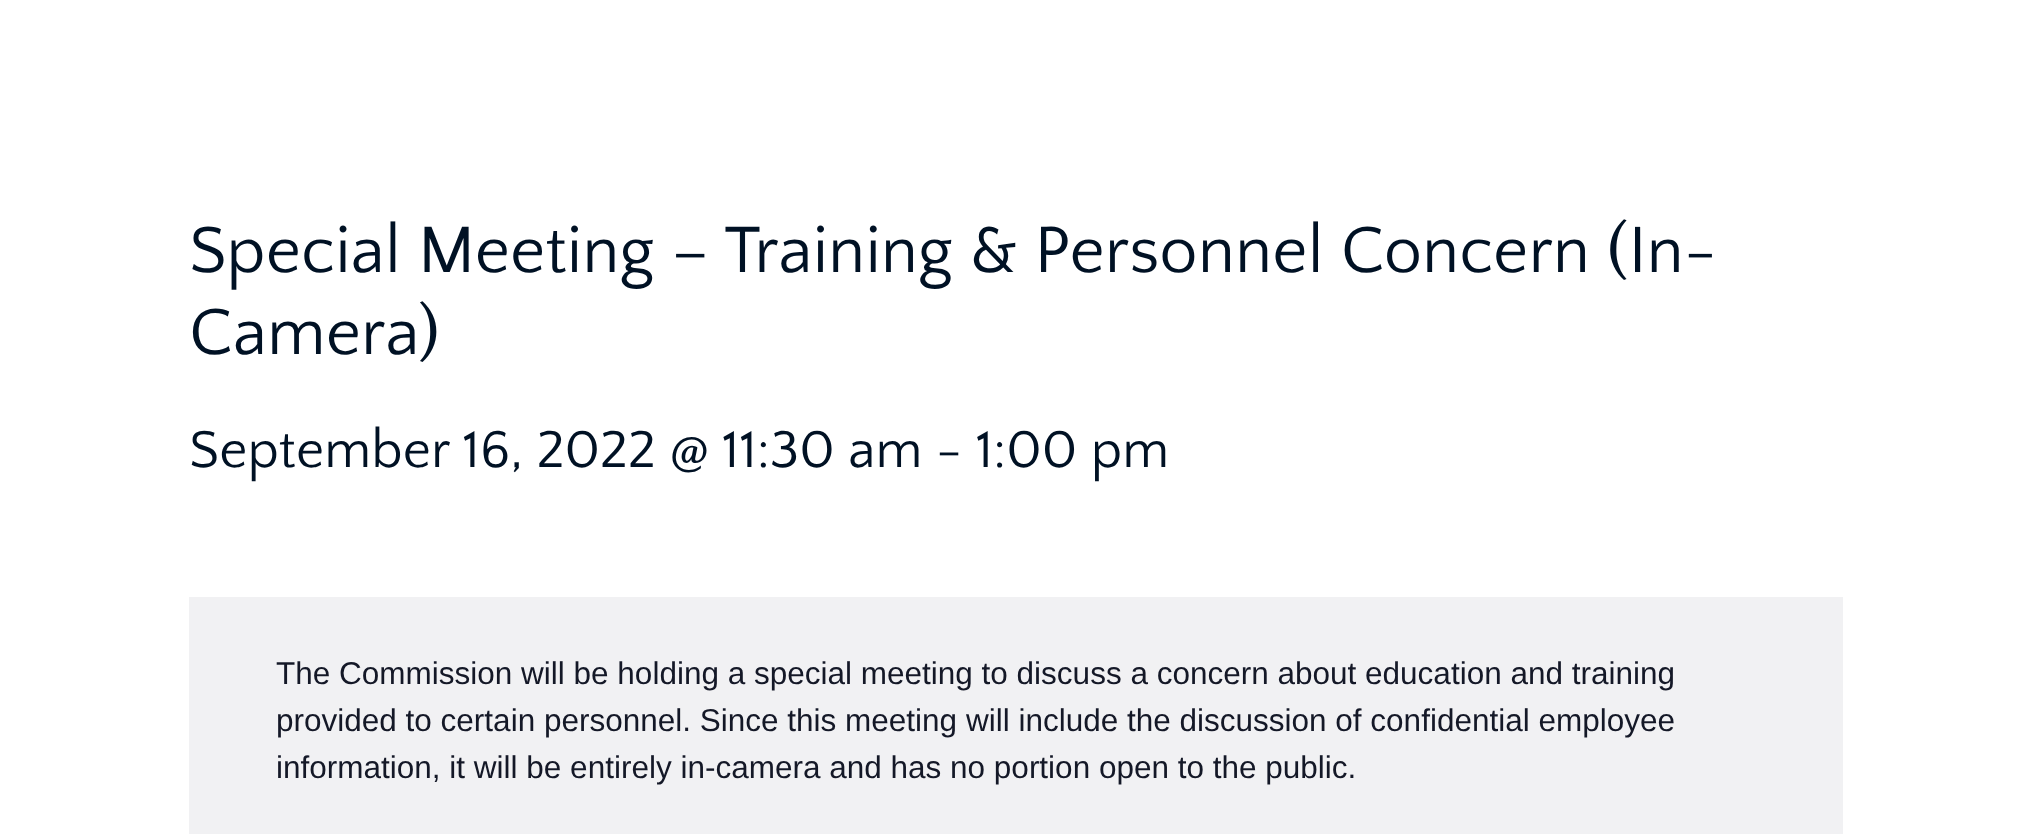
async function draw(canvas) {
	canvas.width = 2031;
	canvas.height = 834;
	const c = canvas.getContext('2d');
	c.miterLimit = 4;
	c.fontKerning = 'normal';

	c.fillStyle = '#fff';
	c.fillRect(0, 0, 2031, 834);
	c.font = '68.4px Quattrocento Sans';
	c.fillStyle = '#001124';
	c.fillText('Special Meeting – Training & Personnel Concern (In-', 189, 272);
	c.fillText('Camera)', 189, 354);
	c.font = '54.7px Quattrocento Sans';
	c.fillText('September 16, 2022 @ 11:30 am - 1:00 pm', 189, 467);
	c.fillStyle = '#f1f1f3';
	c.fillRect(189, 597, 1654, 237);
	c.font = '31.5px Liberation Sans';
	c.fillStyle = '#141827';
	for (const [text, x, y] of [
		['The Commission will be holding a special meeting to discuss a concern about education and training', 276, 684],
		['provided to certain personnel. Since this meeting will include the discussion of confidential employee', 276, 731],
		['information, it will be entirely in-camera and has no portion open to the public.', 276, 778],
	]) {
		c.fillText(text, x, y);
	}
}

draw(document.querySelector('canvas'));
